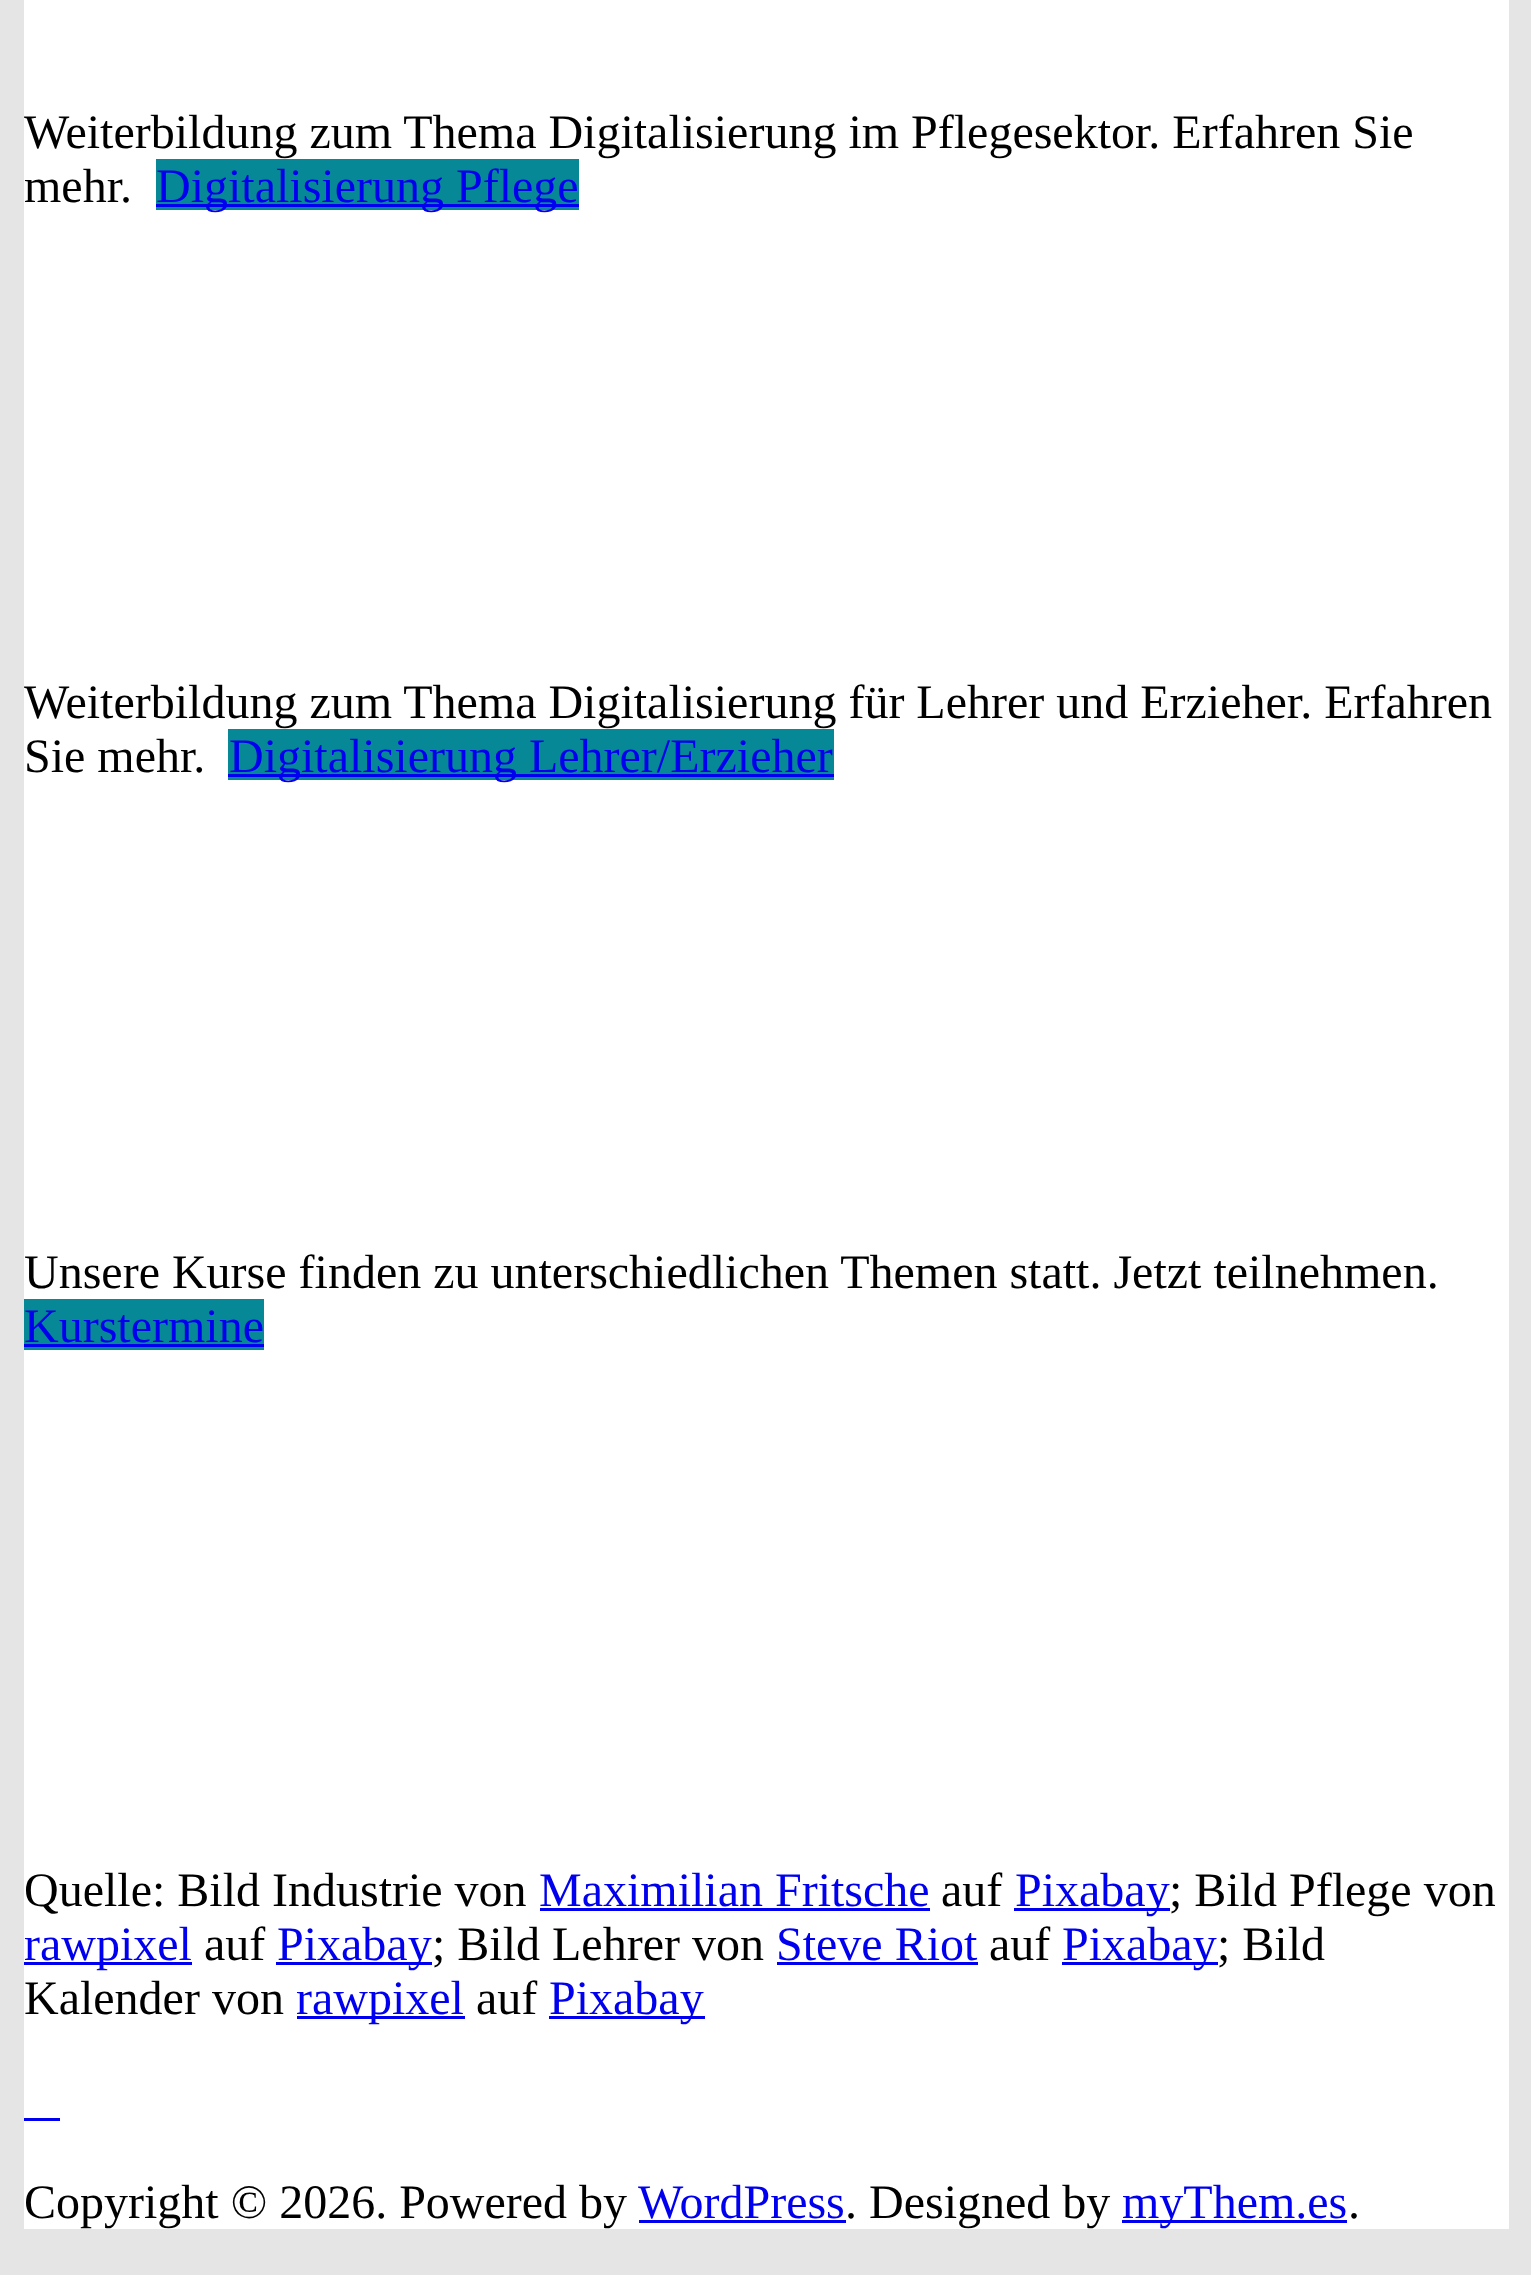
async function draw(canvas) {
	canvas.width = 1531;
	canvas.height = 2275;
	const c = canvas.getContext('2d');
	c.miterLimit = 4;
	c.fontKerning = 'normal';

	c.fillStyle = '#e5e5e5';
	c.fillRect(0, 0, 1531, 2275);
	c.fillStyle = '#fff';
	c.fillRect(24, 0, 1485, 2229);
	c.font = '48px Liberation Serif';
	c.fillStyle = '#000';
	c.fillText('Weiterbildung zum Thema Digitalisierung im Pflegesektor. Erfahren Sie', 24, 148);
	c.fillText('mehr.', 24, 202);
	c.fillStyle = '#078896';
	c.fillRect(156, 159, 423, 51);
	c.fillStyle = '#00e';
	c.fillRect(156, 204, 423, 3);
	c.fillText('Digitalisierung Pflege', 156, 202);
	c.fillStyle = '#000';
	c.fillText('Weiterbildung zum Thema Digitalisierung für Lehrer und Erzieher. Erfahren', 24, 718);
	c.fillText('Sie mehr.', 24, 772);
	c.fillStyle = '#078896';
	c.fillRect(228, 729, 606, 51);
	c.fillStyle = '#00e';
	c.fillRect(228, 774, 606, 3);
	c.fillText('Digitalisierung Lehrer/Erzieher', 229, 772);
	c.fillStyle = '#000';
	c.fillText('Unsere Kurse finden zu unterschiedlichen Themen statt. Jetzt teilnehmen.', 24, 1288);
	c.fillStyle = '#078896';
	c.fillRect(24, 1299, 240, 51);
	c.fillStyle = '#00e';
	c.fillText('Kurstermine', 24, 1342);
	c.fillRect(24, 1344, 240, 3);
	c.fillStyle = '#000';
	c.fillText('Quelle: Bild Industrie von', 24, 1906);
	c.fillStyle = '#00e';
	c.fillText('Maximilian Fritsche', 539, 1906);
	c.fillRect(540, 1908, 390, 3);
	c.fillStyle = '#000';
	c.fillText('auf', 941, 1906);
	c.fillStyle = '#00e';
	c.fillRect(1014, 1908, 156, 3);
	c.fillText('Pixabay', 1015, 1906);
	c.fillStyle = '#000';
	c.fillText('; Bild Pflege von', 1169, 1906);
	c.fillStyle = '#00e';
	c.fillRect(24, 1962, 168, 3);
	c.fillText('rawpixel', 24, 1960);
	c.fillStyle = '#000';
	c.fillText('auf', 204, 1960);
	c.fillStyle = '#00e';
	c.fillRect(276, 1962, 156, 3);
	c.fillText('Pixabay', 277, 1960);
	c.fillStyle = '#000';
	c.fillText('; Bild Lehrer von', 432, 1960);
	c.fillStyle = '#00e';
	c.fillText('Steve Riot', 776, 1960);
	c.fillRect(777, 1962, 201, 3);
	c.fillStyle = '#000';
	c.fillText('auf', 989, 1960);
	c.fillStyle = '#00e';
	c.fillRect(1062, 1962, 156, 3);
	c.fillText('Pixabay', 1062, 1960);
	c.fillStyle = '#000';
	c.fillText('; Bild', 1217, 1960);
	c.fillText('Kalender von', 24, 2014);
	c.fillStyle = '#00e';
	c.fillRect(297, 2016, 168, 3);
	c.fillText('rawpixel', 296, 2014);
	c.fillStyle = '#000';
	c.fillText('auf', 476, 2014);
	c.fillStyle = '#00e';
	c.fillRect(549, 2016, 156, 3);
	c.fillText('Pixabay', 549, 2014);
	c.fillRect(24, 2118, 36, 3);
	c.fillStyle = '#000';
	c.fillText('Copyright © 2026. Powered by', 24, 2218);
	c.fillStyle = '#00e';
	c.fillText('WordPress', 638, 2218);
	c.fillStyle = '#000';
	c.fillText('. Designed by', 845, 2218);
	c.fillStyle = '#00e';
	c.fillRect(639, 2220, 207, 3);
	c.fillRect(1122, 2220, 225, 3);
	c.fillText('myThem.es', 1122, 2218);
	c.fillStyle = '#000';
	c.fillText('.', 1348, 2218);
}

draw(document.querySelector('canvas'));
